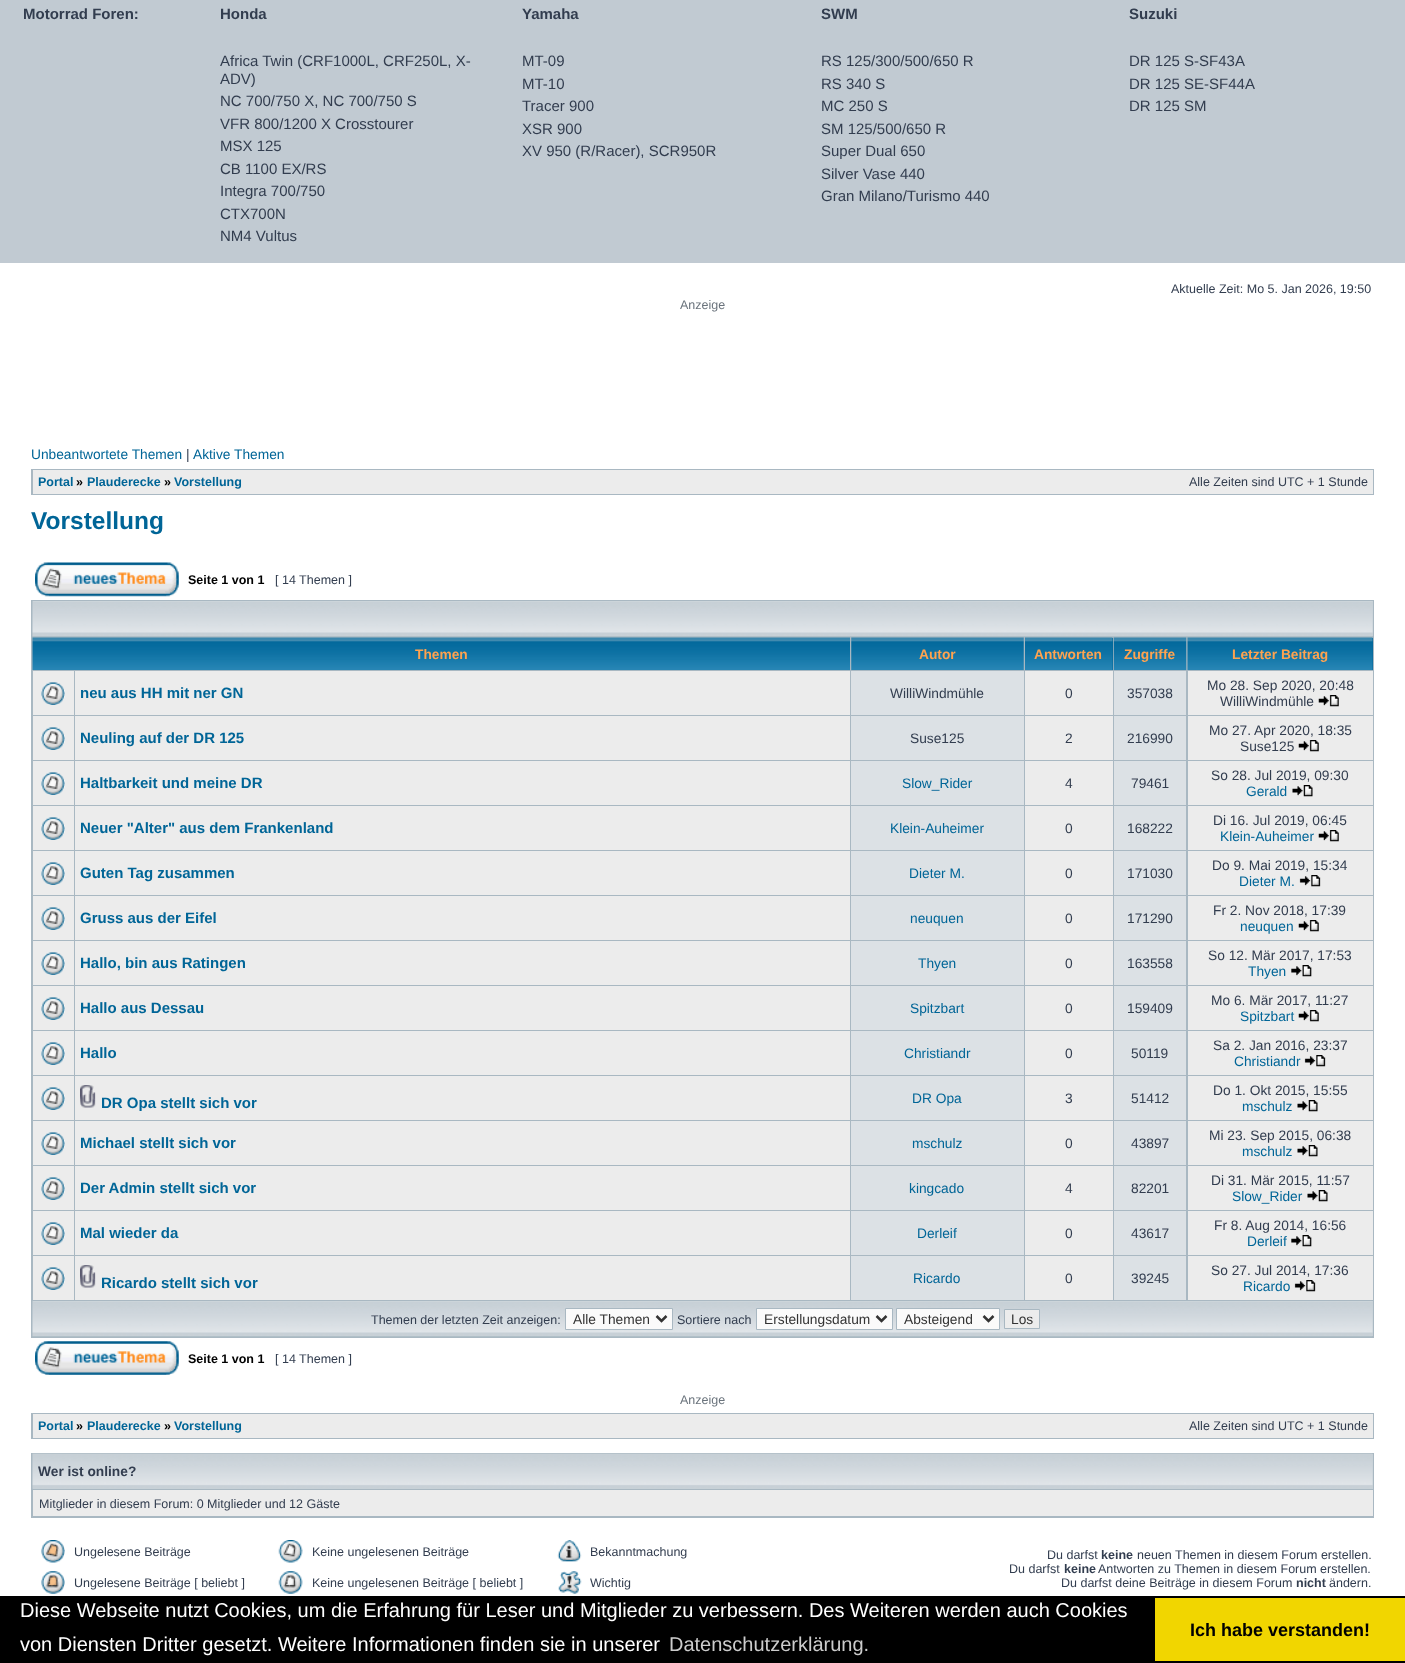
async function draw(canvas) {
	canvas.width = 1405;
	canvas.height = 1663;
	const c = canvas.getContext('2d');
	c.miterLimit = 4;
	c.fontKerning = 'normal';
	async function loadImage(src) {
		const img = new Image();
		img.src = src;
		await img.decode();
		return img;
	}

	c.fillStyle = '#fff';
	c.fillRect(0, 0, 1405, 1663);
	c.fillStyle = '#c1cad2';
	c.fillRect(0, 0, 1405, 263);
	c.font = 'bold 15px Liberation Sans';
	c.fillStyle = '#323d4f';
	for (const [text, x, y] of [
		['Motorrad Foren:', 23, 19],
		['Honda', 220, 19],
		['Yamaha', 522, 19],
		['SWM', 821, 19],
		['Suzuki', 1129, 19],
	]) {
		c.fillText(text, x, y);
	}
	c.font = '15px Liberation Sans';
	for (const [text, x, y] of [
		['Africa Twin (CRF1000L, CRF250L, X-', 220, 66],
		['ADV)', 220, 84],
		['NC 700/750 X, NC 700/750 S', 220, 106],
		['VFR 800/1200 X Crosstourer', 220, 129],
		['MSX 125', 220, 151],
		['CB 1100 EX/RS', 220, 174],
		['Integra 700/750', 220, 196],
		['CTX700N', 220, 219],
		['NM4 Vultus', 220, 241],
		['MT-09', 522, 66],
		['MT-10', 522, 89],
		['Tracer 900', 522, 111],
		['XSR 900', 522, 134],
		['XV 950 (R/Racer), SCR950R', 522, 156],
		['RS 125/300/500/650 R', 821, 66],
		['RS 340 S', 821, 89],
		['MC 250 S', 821, 111],
		['SM 125/500/650 R', 821, 134],
		['Super Dual 650', 821, 156],
		['Silver Vase 440', 821, 179],
		['Gran Milano/Turismo 440', 821, 201],
		['DR 125 S-SF43A', 1129, 66],
		['DR 125 SE-SF44A', 1129, 89],
		['DR 125 SM', 1129, 111],
	]) {
		c.fillText(text, x, y);
	}
	c.font = '12.5px Liberation Sans';
	c.fillText('Aktuelle Zeit: Mo 5. Jan 2026, 19:50', 1171, 293);
	c.fillStyle = '#6a737c';
	c.fillText('Anzeige', 680, 309);
	c.font = '13.75px Liberation Sans';
	c.fillStyle = '#006597';
	c.fillText('Unbeantwortete Themen', 31, 459);
	c.fillStyle = '#323d4f';
	c.fillText('|', 186, 459);
	c.fillStyle = '#006597';
	c.fillText('Aktive Themen', 193, 459);
	c.fillStyle = '#a9b8c2';
	c.fillRect(31, 469, 1343, 26);
	c.fillStyle = '#ececec';
	c.fillRect(33, 470, 1340, 24);
	c.font = 'bold 12.5px Liberation Sans';
	c.fillStyle = '#006597';
	c.fillText('Portal', 38, 486);
	c.fillStyle = '#000';
	c.fillText('»', 76, 486);
	c.fillStyle = '#006597';
	c.fillText('Plauderecke', 87, 486);
	c.fillStyle = '#000';
	c.fillText('»', 164, 486);
	c.fillStyle = '#006597';
	c.fillText('Vorstellung', 174, 486);
	c.font = '12.5px Liberation Sans';
	c.fillStyle = '#323d4f';
	c.fillText('Alle Zeiten sind UTC + 1 Stunde', 1189, 486);
	c.font = 'bold 24.5px Liberation Sans';
	c.fillStyle = '#006597';
	c.fillText('Vorstellung', 31, 529);
	c.drawImage(await loadImage('img1.png'), 35, 562, 144, 35);
	c.font = 'bold 12.5px Liberation Sans';
	c.fillStyle = '#000';
	c.fillText('Seite 1 von 1', 188, 584);
	c.font = '12.5px Liberation Sans';
	c.fillStyle = '#323d4f';
	c.fillText('[ 14 Themen ]', 275, 584);
	c.fillStyle = '#a9b8c2';
	c.fillRect(31, 600, 1343, 738);
	c.fillStyle = '#c7d0d7';
	c.fillRect(33, 601, 1340, 35);
	c.drawImage(await loadImage('img2.png'), 32, 601, 1341, 36);
	c.drawImage(await loadImage('img3.png'), 32, 637, 818, 33);
	c.font = 'bold 13.75px Liberation Sans';
	c.fillStyle = '#ffa34f';
	c.fillText('Themen', 415, 659);
	c.drawImage(await loadImage('img4.png'), 851, 637, 173, 33);
	c.fillText('Autor', 919, 659);
	c.fillStyle = '#069';
	c.fillRect(1112, 638, 1, 32);
	c.drawImage(await loadImage('img5.png'), 1025, 637, 88, 33);
	c.fillStyle = '#ffa34f';
	c.fillText('Antworten', 1034, 659);
	c.drawImage(await loadImage('img6.png'), 1113, 637, 74, 33);
	c.fillText('Zugriffe', 1124, 659);
	c.fillStyle = '#069';
	c.fillRect(1372, 638, 1, 32);
	c.drawImage(await loadImage('img7.png'), 1187, 637, 186, 33);
	c.fillStyle = '#ffa34f';
	c.fillText('Letzter Beitrag', 1232, 659);
	c.fillStyle = '#ececec';
	c.fillRect(33, 671, 41, 44);
	c.drawImage(await loadImage('img8.png'), 41, 682, 24, 23);
	c.fillRect(75, 671, 775, 44);
	c.font = 'bold 15px Liberation Sans';
	c.fillStyle = '#006597';
	c.fillText('neu aus HH mit ner GN', 80, 698);
	c.fillStyle = '#dce1e5';
	c.fillRect(851, 671, 173, 44);
	c.font = '13.75px Liberation Sans';
	c.fillStyle = '#323d4f';
	c.fillText('WilliWindmühle', 890, 698);
	c.fillStyle = '#ececec';
	c.fillRect(1025, 671, 88, 44);
	c.fillStyle = '#323d4f';
	c.fillText('0', 1065, 698);
	c.fillStyle = '#dce1e5';
	c.fillRect(1114, 671, 72, 44);
	c.fillStyle = '#323d4f';
	c.fillText('357038', 1127, 698);
	c.fillStyle = '#ececec';
	c.fillRect(1188, 671, 185, 44);
	c.fillStyle = '#323d4f';
	c.fillText('Mo 28. Sep 2020, 20:48', 1207, 690);
	c.fillText('WilliWindmühle', 1220, 706);
	c.drawImage(await loadImage('img9.png'), 1318, 695, 21, 12);
	c.fillStyle = '#ececec';
	c.fillRect(33, 716, 41, 44);
	c.drawImage(await loadImage('img8.png'), 41, 727, 24, 23);
	c.fillRect(75, 716, 775, 44);
	c.font = 'bold 15px Liberation Sans';
	c.fillStyle = '#006597';
	c.fillText('Neuling auf der DR 125', 80, 743);
	c.fillStyle = '#dce1e5';
	c.fillRect(851, 716, 173, 44);
	c.font = '13.75px Liberation Sans';
	c.fillStyle = '#323d4f';
	c.fillText('Suse125', 910, 743);
	c.fillStyle = '#ececec';
	c.fillRect(1025, 716, 88, 44);
	c.fillStyle = '#323d4f';
	c.fillText('2', 1065, 743);
	c.fillStyle = '#dce1e5';
	c.fillRect(1114, 716, 72, 44);
	c.fillStyle = '#323d4f';
	c.fillText('216990', 1127, 743);
	c.fillStyle = '#ececec';
	c.fillRect(1188, 716, 185, 44);
	c.fillStyle = '#323d4f';
	c.fillText('Mo 27. Apr 2020, 18:35', 1209, 735);
	c.fillText('Suse125', 1240, 751);
	c.drawImage(await loadImage('img10.png'), 1298, 740, 21, 12);
	c.fillStyle = '#ececec';
	c.fillRect(33, 761, 41, 44);
	c.drawImage(await loadImage('img8.png'), 41, 772, 24, 23);
	c.fillRect(75, 761, 775, 44);
	c.font = 'bold 15px Liberation Sans';
	c.fillStyle = '#006597';
	c.fillText('Haltbarkeit und meine DR', 80, 788);
	c.fillStyle = '#dce1e5';
	c.fillRect(851, 761, 173, 44);
	c.font = '13.75px Liberation Sans';
	c.fillStyle = '#006597';
	c.fillText('Slow_Rider', 902, 788);
	c.fillStyle = '#ececec';
	c.fillRect(1025, 761, 88, 44);
	c.fillStyle = '#323d4f';
	c.fillText('4', 1065, 788);
	c.fillStyle = '#dce1e5';
	c.fillRect(1114, 761, 72, 44);
	c.fillStyle = '#323d4f';
	c.fillText('79461', 1131, 788);
	c.fillStyle = '#ececec';
	c.fillRect(1188, 761, 185, 44);
	c.fillStyle = '#323d4f';
	c.fillText('So 28. Jul 2019, 09:30', 1211, 780);
	c.fillStyle = '#006597';
	c.fillText('Gerald', 1246, 796);
	c.drawImage(await loadImage('img11.png'), 1292, 785, 21, 12);
	c.fillStyle = '#ececec';
	c.fillRect(33, 806, 41, 44);
	c.drawImage(await loadImage('img8.png'), 41, 817, 24, 23);
	c.fillRect(75, 806, 775, 44);
	c.font = 'bold 15px Liberation Sans';
	c.fillStyle = '#006597';
	c.fillText('Neuer "Alter" aus dem Frankenland', 80, 833);
	c.fillStyle = '#dce1e5';
	c.fillRect(851, 806, 173, 44);
	c.font = '13.75px Liberation Sans';
	c.fillStyle = '#006597';
	c.fillText('Klein-Auheimer', 890, 833);
	c.fillStyle = '#ececec';
	c.fillRect(1025, 806, 88, 44);
	c.fillStyle = '#323d4f';
	c.fillText('0', 1065, 833);
	c.fillStyle = '#dce1e5';
	c.fillRect(1114, 806, 72, 44);
	c.fillStyle = '#323d4f';
	c.fillText('168222', 1127, 833);
	c.fillStyle = '#ececec';
	c.fillRect(1188, 806, 185, 44);
	c.fillStyle = '#323d4f';
	c.fillText('Di 16. Jul 2019, 06:45', 1213, 825);
	c.fillStyle = '#006597';
	c.fillText('Klein-Auheimer', 1220, 841);
	c.drawImage(await loadImage('img9.png'), 1318, 830, 21, 12);
	c.fillStyle = '#ececec';
	c.fillRect(33, 851, 41, 44);
	c.drawImage(await loadImage('img8.png'), 41, 862, 24, 23);
	c.fillRect(75, 851, 775, 44);
	c.font = 'bold 15px Liberation Sans';
	c.fillStyle = '#006597';
	c.fillText('Guten Tag zusammen', 80, 878);
	c.fillStyle = '#dce1e5';
	c.fillRect(851, 851, 173, 44);
	c.font = '13.75px Liberation Sans';
	c.fillStyle = '#006597';
	c.fillText('Dieter M.', 909, 878);
	c.fillStyle = '#ececec';
	c.fillRect(1025, 851, 88, 44);
	c.fillStyle = '#323d4f';
	c.fillText('0', 1065, 878);
	c.fillStyle = '#dce1e5';
	c.fillRect(1114, 851, 72, 44);
	c.fillStyle = '#323d4f';
	c.fillText('171030', 1127, 878);
	c.fillStyle = '#ececec';
	c.fillRect(1188, 851, 185, 44);
	c.fillStyle = '#323d4f';
	c.fillText('Do 9. Mai 2019, 15:34', 1212, 870);
	c.fillStyle = '#006597';
	c.fillText('Dieter M.', 1239, 886);
	c.drawImage(await loadImage('img12.png'), 1299, 875, 22, 12);
	c.fillStyle = '#ececec';
	c.fillRect(33, 896, 41, 44);
	c.drawImage(await loadImage('img8.png'), 41, 907, 24, 23);
	c.fillRect(75, 896, 775, 44);
	c.font = 'bold 15px Liberation Sans';
	c.fillStyle = '#006597';
	c.fillText('Gruss aus der Eifel', 80, 923);
	c.fillStyle = '#dce1e5';
	c.fillRect(851, 896, 173, 44);
	c.font = '13.75px Liberation Sans';
	c.fillStyle = '#006597';
	c.fillText('neuquen', 910, 923);
	c.fillStyle = '#ececec';
	c.fillRect(1025, 896, 88, 44);
	c.fillStyle = '#323d4f';
	c.fillText('0', 1065, 923);
	c.fillStyle = '#dce1e5';
	c.fillRect(1114, 896, 72, 44);
	c.fillStyle = '#323d4f';
	c.fillText('171290', 1127, 923);
	c.fillStyle = '#ececec';
	c.fillRect(1188, 896, 185, 44);
	c.fillStyle = '#323d4f';
	c.fillText('Fr 2. Nov 2018, 17:39', 1213, 915);
	c.fillStyle = '#006597';
	c.fillText('neuquen', 1240, 931);
	c.drawImage(await loadImage('img10.png'), 1298, 920, 21, 12);
	c.fillStyle = '#ececec';
	c.fillRect(33, 941, 41, 44);
	c.drawImage(await loadImage('img8.png'), 41, 952, 24, 23);
	c.fillRect(75, 941, 775, 44);
	c.font = 'bold 15px Liberation Sans';
	c.fillStyle = '#006597';
	c.fillText('Hallo, bin aus Ratingen', 80, 968);
	c.fillStyle = '#dce1e5';
	c.fillRect(851, 941, 173, 44);
	c.font = '13.75px Liberation Sans';
	c.fillStyle = '#006597';
	c.fillText('Thyen', 918, 968);
	c.fillStyle = '#ececec';
	c.fillRect(1025, 941, 88, 44);
	c.fillStyle = '#323d4f';
	c.fillText('0', 1065, 968);
	c.fillStyle = '#dce1e5';
	c.fillRect(1114, 941, 72, 44);
	c.fillStyle = '#323d4f';
	c.fillText('163558', 1127, 968);
	c.fillStyle = '#ececec';
	c.fillRect(1188, 941, 185, 44);
	c.fillStyle = '#323d4f';
	c.fillText('So 12. Mär 2017, 17:53', 1208, 960);
	c.fillStyle = '#006597';
	c.fillText('Thyen', 1248, 976);
	c.drawImage(await loadImage('img13.png'), 1291, 965, 21, 12);
	c.fillStyle = '#ececec';
	c.fillRect(33, 986, 41, 44);
	c.drawImage(await loadImage('img8.png'), 41, 997, 24, 23);
	c.fillRect(75, 986, 775, 44);
	c.font = 'bold 15px Liberation Sans';
	c.fillStyle = '#006597';
	c.fillText('Hallo aus Dessau', 80, 1013);
	c.fillStyle = '#dce1e5';
	c.fillRect(851, 986, 173, 44);
	c.font = '13.75px Liberation Sans';
	c.fillStyle = '#006597';
	c.fillText('Spitzbart', 910, 1013);
	c.fillStyle = '#ececec';
	c.fillRect(1025, 986, 88, 44);
	c.fillStyle = '#323d4f';
	c.fillText('0', 1065, 1013);
	c.fillStyle = '#dce1e5';
	c.fillRect(1114, 986, 72, 44);
	c.fillStyle = '#323d4f';
	c.fillText('159409', 1127, 1013);
	c.fillStyle = '#ececec';
	c.fillRect(1188, 986, 185, 44);
	c.fillStyle = '#323d4f';
	c.fillText('Mo 6. Mär 2017, 11:27', 1211, 1005);
	c.fillStyle = '#006597';
	c.fillText('Spitzbart', 1240, 1021);
	c.drawImage(await loadImage('img10.png'), 1298, 1010, 21, 12);
	c.fillStyle = '#ececec';
	c.fillRect(33, 1031, 41, 44);
	c.drawImage(await loadImage('img8.png'), 41, 1042, 24, 23);
	c.fillRect(75, 1031, 775, 44);
	c.font = 'bold 15px Liberation Sans';
	c.fillStyle = '#006597';
	c.fillText('Hallo', 80, 1058);
	c.fillStyle = '#dce1e5';
	c.fillRect(851, 1031, 173, 44);
	c.font = '13.75px Liberation Sans';
	c.fillStyle = '#006597';
	c.fillText('Christiandr', 904, 1058);
	c.fillStyle = '#ececec';
	c.fillRect(1025, 1031, 88, 44);
	c.fillStyle = '#323d4f';
	c.fillText('0', 1065, 1058);
	c.fillStyle = '#dce1e5';
	c.fillRect(1114, 1031, 72, 44);
	c.fillStyle = '#323d4f';
	c.fillText('50119', 1131, 1058);
	c.fillStyle = '#ececec';
	c.fillRect(1188, 1031, 185, 44);
	c.fillStyle = '#323d4f';
	c.fillText('Sa 2. Jan 2016, 23:37', 1213, 1050);
	c.fillStyle = '#006597';
	c.fillText('Christiandr', 1234, 1066);
	c.drawImage(await loadImage('img12.png'), 1304, 1055, 22, 12);
	c.fillStyle = '#ececec';
	c.fillRect(33, 1076, 41, 44);
	c.drawImage(await loadImage('img8.png'), 41, 1087, 24, 23);
	c.fillRect(75, 1076, 775, 44);
	c.drawImage(await loadImage('img14.png'), 80, 1085, 16, 23);
	c.font = 'bold 15px Liberation Sans';
	c.fillStyle = '#006597';
	c.fillText('DR Opa stellt sich vor', 101, 1108);
	c.fillStyle = '#dce1e5';
	c.fillRect(851, 1076, 173, 44);
	c.font = '13.75px Liberation Sans';
	c.fillStyle = '#006597';
	c.fillText('DR Opa', 912, 1103);
	c.fillStyle = '#ececec';
	c.fillRect(1025, 1076, 88, 44);
	c.fillStyle = '#323d4f';
	c.fillText('3', 1065, 1103);
	c.fillStyle = '#dce1e5';
	c.fillRect(1114, 1076, 72, 44);
	c.fillStyle = '#323d4f';
	c.fillText('51412', 1131, 1103);
	c.fillStyle = '#ececec';
	c.fillRect(1188, 1076, 185, 44);
	c.fillStyle = '#323d4f';
	c.fillText('Do 1. Okt 2015, 15:55', 1213, 1095);
	c.fillStyle = '#006597';
	c.fillText('mschulz', 1242, 1111);
	c.drawImage(await loadImage('img11.png'), 1297, 1100, 21, 12);
	c.fillStyle = '#ececec';
	c.fillRect(33, 1121, 41, 44);
	c.drawImage(await loadImage('img8.png'), 41, 1132, 24, 23);
	c.fillRect(75, 1121, 775, 44);
	c.font = 'bold 15px Liberation Sans';
	c.fillStyle = '#006597';
	c.fillText('Michael stellt sich vor', 80, 1148);
	c.fillStyle = '#dce1e5';
	c.fillRect(851, 1121, 173, 44);
	c.font = '13.75px Liberation Sans';
	c.fillStyle = '#006597';
	c.fillText('mschulz', 912, 1148);
	c.fillStyle = '#ececec';
	c.fillRect(1025, 1121, 88, 44);
	c.fillStyle = '#323d4f';
	c.fillText('0', 1065, 1148);
	c.fillStyle = '#dce1e5';
	c.fillRect(1114, 1121, 72, 44);
	c.fillStyle = '#323d4f';
	c.fillText('43897', 1131, 1148);
	c.fillStyle = '#ececec';
	c.fillRect(1188, 1121, 185, 44);
	c.fillStyle = '#323d4f';
	c.fillText('Mi 23. Sep 2015, 06:38', 1209, 1140);
	c.fillStyle = '#006597';
	c.fillText('mschulz', 1242, 1156);
	c.drawImage(await loadImage('img11.png'), 1297, 1145, 21, 12);
	c.fillStyle = '#ececec';
	c.fillRect(33, 1166, 41, 44);
	c.drawImage(await loadImage('img8.png'), 41, 1177, 24, 23);
	c.fillRect(75, 1166, 775, 44);
	c.font = 'bold 15px Liberation Sans';
	c.fillStyle = '#006597';
	c.fillText('Der Admin stellt sich vor', 80, 1193);
	c.fillStyle = '#dce1e5';
	c.fillRect(851, 1166, 173, 44);
	c.font = '13.75px Liberation Sans';
	c.fillStyle = '#006597';
	c.fillText('kingcado', 909, 1193);
	c.fillStyle = '#ececec';
	c.fillRect(1025, 1166, 88, 44);
	c.fillStyle = '#323d4f';
	c.fillText('4', 1065, 1193);
	c.fillStyle = '#dce1e5';
	c.fillRect(1114, 1166, 72, 44);
	c.fillStyle = '#323d4f';
	c.fillText('82201', 1131, 1193);
	c.fillStyle = '#ececec';
	c.fillRect(1188, 1166, 185, 44);
	c.fillStyle = '#323d4f';
	c.fillText('Di 31. Mär 2015, 11:57', 1211, 1185);
	c.fillStyle = '#006597';
	c.fillText('Slow_Rider', 1232, 1201);
	c.drawImage(await loadImage('img11.png'), 1307, 1190, 21, 12);
	c.fillStyle = '#ececec';
	c.fillRect(33, 1211, 41, 44);
	c.drawImage(await loadImage('img8.png'), 41, 1222, 24, 23);
	c.fillRect(75, 1211, 775, 44);
	c.font = 'bold 15px Liberation Sans';
	c.fillStyle = '#006597';
	c.fillText('Mal wieder da', 80, 1238);
	c.fillStyle = '#dce1e5';
	c.fillRect(851, 1211, 173, 44);
	c.font = '13.75px Liberation Sans';
	c.fillStyle = '#006597';
	c.fillText('Derleif', 917, 1238);
	c.fillStyle = '#ececec';
	c.fillRect(1025, 1211, 88, 44);
	c.fillStyle = '#323d4f';
	c.fillText('0', 1065, 1238);
	c.fillStyle = '#dce1e5';
	c.fillRect(1114, 1211, 72, 44);
	c.fillStyle = '#323d4f';
	c.fillText('43617', 1131, 1238);
	c.fillStyle = '#ececec';
	c.fillRect(1188, 1211, 185, 44);
	c.fillStyle = '#323d4f';
	c.fillText('Fr 8. Aug 2014, 16:56', 1214, 1230);
	c.fillStyle = '#006597';
	c.fillText('Derleif', 1247, 1246);
	c.drawImage(await loadImage('img13.png'), 1291, 1235, 21, 12);
	c.fillStyle = '#ececec';
	c.fillRect(33, 1256, 41, 44);
	c.drawImage(await loadImage('img8.png'), 41, 1267, 24, 23);
	c.fillRect(75, 1256, 775, 44);
	c.drawImage(await loadImage('img14.png'), 80, 1265, 16, 23);
	c.font = 'bold 15px Liberation Sans';
	c.fillStyle = '#006597';
	c.fillText('Ricardo stellt sich vor', 101, 1288);
	c.fillStyle = '#dce1e5';
	c.fillRect(851, 1256, 173, 44);
	c.font = '13.75px Liberation Sans';
	c.fillStyle = '#006597';
	c.fillText('Ricardo', 913, 1283);
	c.fillStyle = '#ececec';
	c.fillRect(1025, 1256, 88, 44);
	c.fillStyle = '#323d4f';
	c.fillText('0', 1065, 1283);
	c.fillStyle = '#dce1e5';
	c.fillRect(1114, 1256, 72, 44);
	c.fillStyle = '#323d4f';
	c.fillText('39245', 1131, 1283);
	c.fillStyle = '#ececec';
	c.fillRect(1188, 1256, 185, 44);
	c.fillStyle = '#323d4f';
	c.fillText('So 27. Jul 2014, 17:36', 1211, 1275);
	c.fillStyle = '#006597';
	c.fillText('Ricardo', 1243, 1291);
	c.drawImage(await loadImage('img12.png'), 1294, 1280, 22, 12);
	c.fillStyle = '#c7d0d7';
	c.fillRect(33, 1301, 1340, 35);
	c.drawImage(await loadImage('img2.png'), 32, 1301, 1341, 36);
	c.font = '12.5px Liberation Sans';
	c.fillStyle = '#323d4f';
	c.fillText('Themen der letzten Zeit anzeigen:', 371, 1324);
	c.fillStyle = '#fafafa';
	c.beginPath();
	c.rect(565.5, 1308.5, 107, 21);
	c.fill();
	c.strokeStyle = '#a9b8c2';
	c.stroke();
	c.beginPath();
	c.moveTo(656.5, 1316);
	c.lineTo(661.5, 1321);
	c.lineTo(666.5, 1316);
	c.strokeStyle = '#333';
	c.lineWidth = 2.5;
	c.stroke();
	c.font = '13.75px Liberation Sans';
	c.fillStyle = '#333';
	c.fillText('Alle Themen', 573, 1324);
	c.font = '12.5px Liberation Sans';
	c.fillStyle = '#323d4f';
	c.fillText('Sortiere nach', 677, 1324);
	c.fillStyle = '#fafafa';
	c.beginPath();
	c.rect(756.5, 1308.5, 136, 21);
	c.fill();
	c.strokeStyle = '#a9b8c2';
	c.lineWidth = 1;
	c.stroke();
	c.beginPath();
	c.moveTo(876.5, 1316);
	c.lineTo(881.5, 1321);
	c.lineTo(886.5, 1316);
	c.strokeStyle = '#333';
	c.lineWidth = 2.5;
	c.stroke();
	c.font = '13.75px Liberation Sans';
	c.fillStyle = '#333';
	c.fillText('Erstellungsdatum', 764, 1324);
	c.fillStyle = '#fafafa';
	c.beginPath();
	c.rect(896.5, 1308.5, 103, 21);
	c.fill();
	c.strokeStyle = '#a9b8c2';
	c.lineWidth = 1;
	c.stroke();
	c.beginPath();
	c.moveTo(983.5, 1316);
	c.lineTo(988.5, 1321);
	c.lineTo(993.5, 1316);
	c.strokeStyle = '#333';
	c.lineWidth = 2.5;
	c.stroke();
	c.fillStyle = '#333';
	c.fillText('Absteigend', 904, 1324);
	c.fillStyle = '#ececec';
	c.beginPath();
	c.rect(1004.5, 1309.5, 35, 19);
	c.fill();
	c.strokeStyle = '#a9b8c2';
	c.lineWidth = 1;
	c.stroke();
	c.fillStyle = '#333';
	c.fillText('Los', 1011, 1324);
	c.drawImage(await loadImage('img15.png'), 35, 1341, 144, 34);
	c.font = 'bold 12.5px Liberation Sans';
	c.fillStyle = '#000';
	c.fillText('Seite 1 von 1', 188, 1363);
	c.font = '12.5px Liberation Sans';
	c.fillStyle = '#323d4f';
	c.fillText('[ 14 Themen ]', 275, 1363);
	c.fillStyle = '#6a737c';
	c.fillText('Anzeige', 680, 1404);
	c.fillStyle = '#a9b8c2';
	c.fillRect(31, 1413, 1343, 26);
	c.fillStyle = '#ececec';
	c.fillRect(33, 1414, 1340, 24);
	c.font = 'bold 12.5px Liberation Sans';
	c.fillStyle = '#006597';
	c.fillText('Portal', 38, 1430);
	c.fillStyle = '#000';
	c.fillText('»', 76, 1430);
	c.fillStyle = '#006597';
	c.fillText('Plauderecke', 87, 1430);
	c.fillStyle = '#000';
	c.fillText('»', 164, 1430);
	c.fillStyle = '#006597';
	c.fillText('Vorstellung', 174, 1430);
	c.font = '12.5px Liberation Sans';
	c.fillStyle = '#323d4f';
	c.fillText('Alle Zeiten sind UTC + 1 Stunde', 1189, 1430);
	c.fillStyle = '#a9b8c2';
	c.fillRect(31, 1453, 1343, 65);
	c.fillStyle = '#c7d0d7';
	c.fillRect(33, 1454, 1340, 35);
	c.drawImage(await loadImage('img16.png'), 32, 1453, 1341, 36);
	c.font = 'bold 13.75px Liberation Sans';
	c.fillStyle = '#323d4f';
	c.fillText('Wer ist online?', 38, 1476);
	c.fillStyle = '#ececec';
	c.fillRect(33, 1490, 1340, 26);
	c.font = '12.5px Liberation Sans';
	c.fillStyle = '#323d4f';
	c.fillText('Mitglieder in diesem Forum: 0 Mitglieder und 12 Gäste', 39, 1508);
	c.drawImage(await loadImage('img17.png'), 41, 1540, 24, 23);
	c.fillText('Ungelesene Beiträge', 74, 1556);
	c.drawImage(await loadImage('img18.png'), 278, 1540, 25, 23);
	c.fillText('Keine ungelesenen Beiträge', 312, 1556);
	c.drawImage(await loadImage('img19.png'), 557, 1540, 25, 22);
	c.fillText('Bekanntmachung', 590, 1556);
	c.drawImage(await loadImage('img20.png'), 41, 1571, 24, 23);
	c.fillText('Ungelesene Beiträge [ beliebt ]', 74, 1587);
	c.drawImage(await loadImage('img21.png'), 278, 1571, 25, 23);
	c.fillText('Keine ungelesenen Beiträge [ beliebt ]', 312, 1587);
	c.drawImage(await loadImage('img22.png'), 558, 1571, 24, 23);
	c.fillText('Wichtig', 590, 1587);
	c.fillText('Du darfst', 1047, 1559);
	c.font = 'bold 12.5px Liberation Sans';
	c.fillText('keine', 1101, 1559);
	c.font = '12.5px Liberation Sans';
	c.fillText('neuen Themen in diesem Forum erstellen.', 1137, 1559);
	c.fillText('Du darfst', 1009, 1573);
	c.font = 'bold 12.5px Liberation Sans';
	c.fillText('keine', 1064, 1573);
	c.font = '12.5px Liberation Sans';
	c.fillText('Antworten zu Themen in diesem Forum erstellen.', 1098, 1573);
	c.fillText('Du darfst deine Beiträge in diesem Forum', 1061, 1587);
	c.font = 'bold 12.5px Liberation Sans';
	c.fillText('nicht', 1296, 1587);
	c.font = '12.5px Liberation Sans';
	c.fillText('ändern.', 1329, 1587);
	c.fillStyle = '#000';
	c.fillRect(0, 1596, 1405, 67);
	c.font = '20px Liberation Sans';
	c.fillStyle = '#fff';
	c.fillText('Diese Webseite nutzt Cookies, um die Erfahrung für Leser und Mitglieder zu verbessern. Des Weiteren werden auch Cookies', 20, 1617);
	c.fillText('von Diensten Dritter gesetzt. Weitere Informationen finden sie in unserer', 20, 1651);
	c.fillStyle = '#ccc';
	c.fillText('Datenschutzerklärung.', 669, 1651);
	c.fillStyle = '#f1d600';
	c.fillRect(1155, 1598, 250, 63);
	c.font = 'bold 18px Liberation Sans';
	c.fillStyle = '#000';
	c.fillText('Ich habe verstanden!', 1190, 1636);
}

draw(document.querySelector('canvas'));
